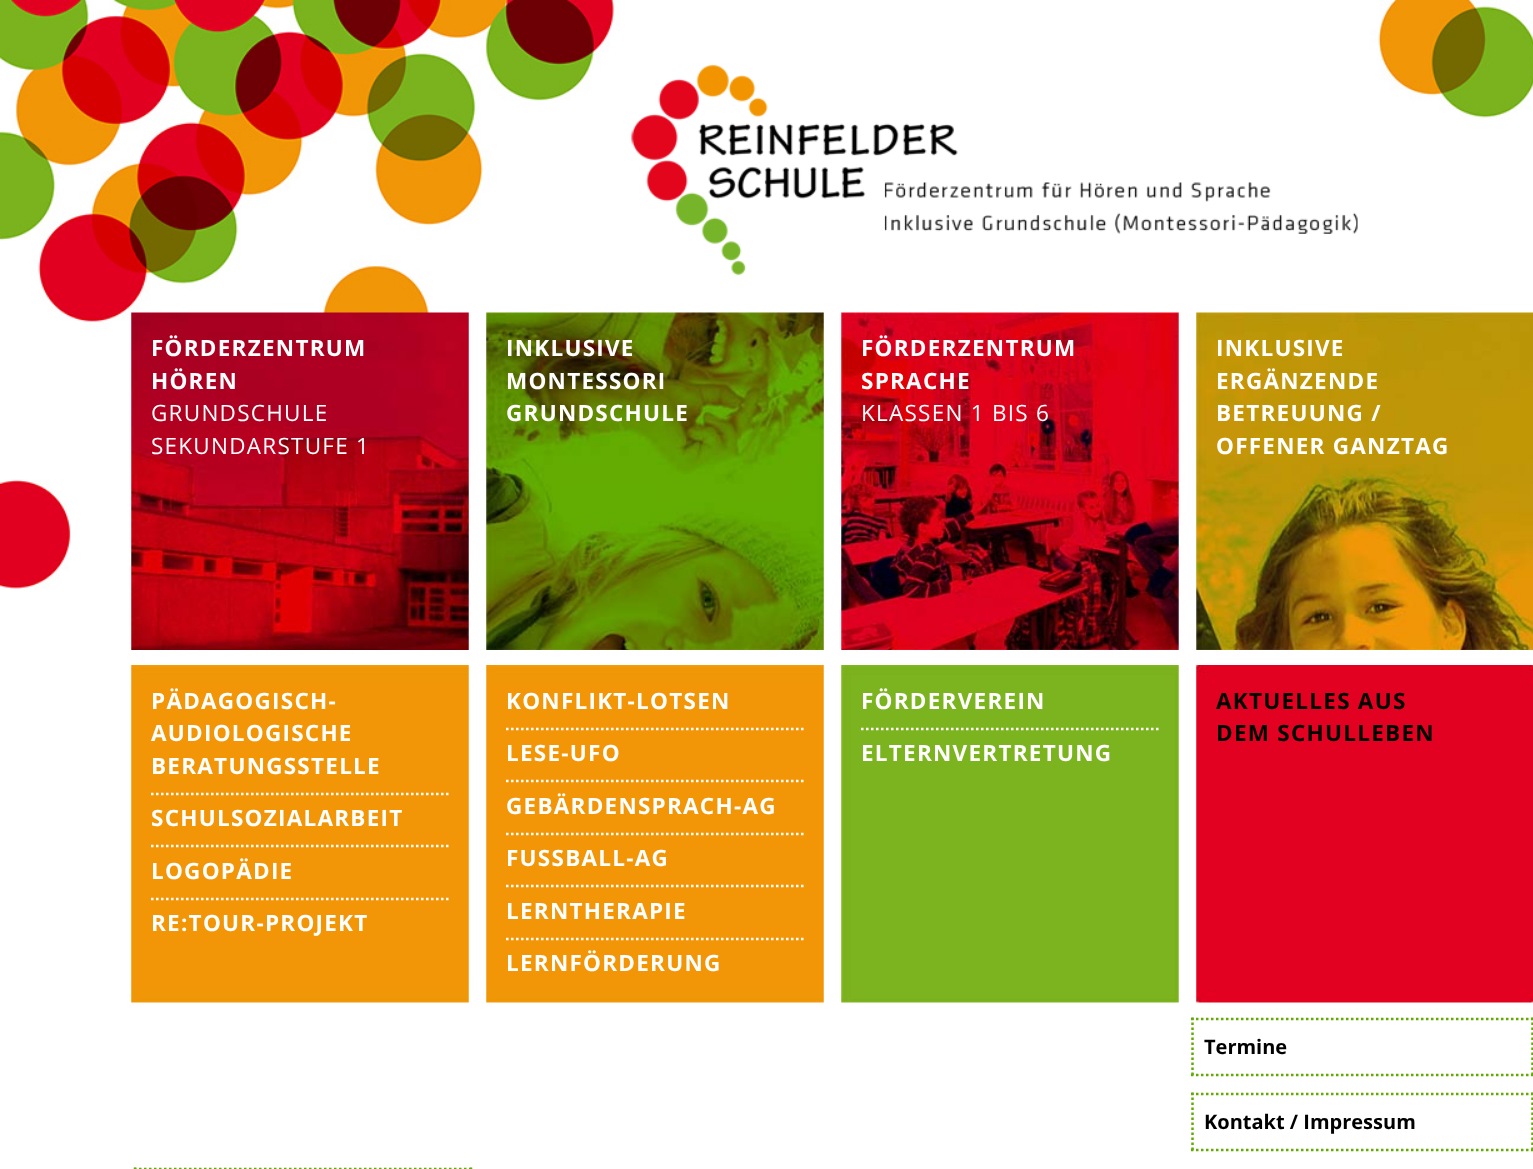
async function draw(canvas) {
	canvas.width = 1533;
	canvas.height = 1169;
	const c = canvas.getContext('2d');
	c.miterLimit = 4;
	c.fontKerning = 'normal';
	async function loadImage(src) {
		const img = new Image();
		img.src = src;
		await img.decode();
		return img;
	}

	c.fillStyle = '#fff';
	c.fillRect(0, 0, 1533, 1169);
	c.drawImage(await loadImage('img1.png'), 0, 0, 1533, 590);
	c.drawImage(await loadImage('img2.png'), 631, 64, 727, 212);
	c.drawImage(await loadImage('img3.png'), 131, 312, 338, 338);
	c.letterSpacing = '1.25px';
	c.font = 'bold 22.5px Open Sans';
	c.fillText('FÖRDERZENTRUM', 151, 356);
	c.fillText('HÖREN', 151, 389);
	c.font = '22.5px Open Sans';
	c.fillText('GRUNDSCHULE', 151, 421);
	c.fillText('SEKUNDARSTUFE 1', 151, 454);
	c.drawImage(await loadImage('img4.png'), 486, 312, 338, 338);
	c.font = 'bold 22.5px Open Sans';
	for (const [text, x, y] of [
		['INKLUSIVE', 506, 356],
		['MONTESSORI', 506, 389],
		['GRUNDSCHULE', 506, 421],
	]) {
		c.fillText(text, x, y);
	}
	c.drawImage(await loadImage('img5.png'), 841, 312, 338, 338);
	c.fillText('FÖRDERZENTRUM', 861, 356);
	c.fillText('SPRACHE', 861, 389);
	c.font = '22.5px Open Sans';
	c.fillText('KLASSEN 1 BIS 6', 861, 421);
	c.drawImage(await loadImage('img6.png'), 1196, 312, 337, 338);
	c.font = 'bold 22.5px Open Sans';
	for (const [text, x, y] of [
		['INKLUSIVE', 1216, 356],
		['ERGÄNZENDE', 1216, 389],
		['BETREUUNG /', 1216, 421],
		['OFFENER GANZTAG', 1216, 454],
	]) {
		c.fillText(text, x, y);
	}
	c.drawImage(await loadImage('img7.png'), 131, 665, 338, 338);
	for (const [text, x, y] of [
		['PÄDAGOGISCH-', 151, 709],
		['AUDIOLOGISCHE', 151, 741],
		['BERATUNGSSTELLE', 151, 774],
	]) {
		c.fillText(text, x, y);
	}
	c.beginPath();
	c.moveTo(151, 794);
	c.lineTo(449, 794);
	c.strokeStyle = '#fff';
	c.lineWidth = 2.5;
	c.setLineDash([2.5, 2.5]);
	c.stroke();
	c.fillText('SCHULSOZIALARBEIT', 151, 826);
	c.beginPath();
	c.moveTo(151, 846);
	c.lineTo(449, 846);
	c.stroke();
	c.fillText('LOGOPÄDIE', 151, 879);
	c.beginPath();
	c.moveTo(151, 899);
	c.lineTo(449, 899);
	c.stroke();
	c.fillText('RE:TOUR-PROJEKT', 151, 931);
	c.drawImage(await loadImage('img7.png'), 486, 665, 338, 338);
	c.fillText('KONFLIKT-LOTSEN', 506, 709);
	c.beginPath();
	c.moveTo(506, 729);
	c.lineTo(804, 729);
	c.stroke();
	c.fillText('LESE-UFO', 506, 761);
	c.beginPath();
	c.moveTo(506, 781);
	c.lineTo(804, 781);
	c.stroke();
	c.fillText('GEBÄRDENSPRACH-AG', 506, 814);
	c.beginPath();
	c.moveTo(506, 834);
	c.lineTo(804, 834);
	c.stroke();
	c.fillText('FUSSBALL-AG', 506, 866);
	c.beginPath();
	c.moveTo(506, 886);
	c.lineTo(804, 886);
	c.stroke();
	c.fillText('LERNTHERAPIE', 506, 919);
	c.beginPath();
	c.moveTo(506, 939);
	c.lineTo(804, 939);
	c.stroke();
	c.fillText('LERNFÖRDERUNG', 506, 971);
	c.drawImage(await loadImage('img8.png'), 841, 665, 338, 338);
	c.fillText('FÖRDERVEREIN', 861, 709);
	c.beginPath();
	c.moveTo(861, 729);
	c.lineTo(1159, 729);
	c.stroke();
	c.fillText('ELTERNVERTRETUNG', 861, 761);
	c.drawImage(await loadImage('img9.png'), 1196, 665, 337, 338);
	c.fillStyle = '#000';
	c.fillText('AKTUELLES AUS', 1216, 709);
	c.fillText('DEM SCHULLEBEN', 1216, 741);
	c.beginPath();
	c.moveTo(1191, 1019);
	c.lineTo(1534, 1019);
	c.strokeStyle = '#62ac00';
	c.stroke();
	c.beginPath();
	c.moveTo(1532.5, 1017.5);
	c.lineTo(1532.5, 1076);
	c.stroke();
	c.beginPath();
	c.moveTo(1191, 1075);
	c.lineTo(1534, 1075);
	c.stroke();
	c.beginPath();
	c.moveTo(1192.5, 1017.5);
	c.lineTo(1192.5, 1076);
	c.stroke();
	c.letterSpacing = '0px';
	c.font = 'bold 20px Open Sans';
	c.fillText('Termine', 1204, 1054);
	c.beginPath();
	c.moveTo(1191, 1094);
	c.lineTo(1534, 1094);
	c.stroke();
	c.beginPath();
	c.moveTo(1532.5, 1092.5);
	c.lineTo(1532.5, 1151);
	c.stroke();
	c.beginPath();
	c.moveTo(1191, 1150);
	c.lineTo(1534, 1150);
	c.stroke();
	c.beginPath();
	c.moveTo(1192.5, 1092.5);
	c.lineTo(1192.5, 1151);
	c.stroke();
	c.fillText('Kontakt / Impressum', 1204, 1129);
	c.beginPath();
	c.moveTo(134, 1169);
	c.lineTo(472.5, 1169);
	c.stroke();
	c.beginPath();
	c.moveTo(471, 1167.5);
	c.lineTo(471, 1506);
	c.stroke();
	c.beginPath();
	c.moveTo(135, 1167.5);
	c.lineTo(135, 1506);
	c.stroke();
}

draw(document.querySelector('canvas'));
